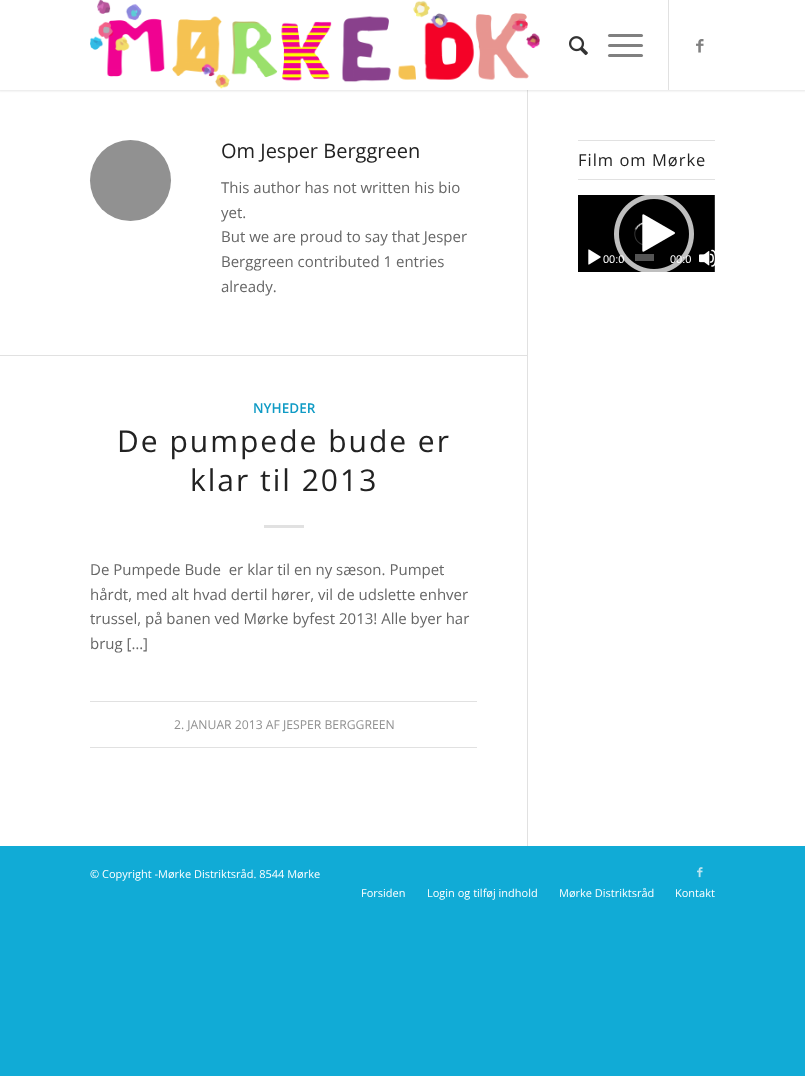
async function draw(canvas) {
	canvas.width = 805;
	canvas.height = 1076;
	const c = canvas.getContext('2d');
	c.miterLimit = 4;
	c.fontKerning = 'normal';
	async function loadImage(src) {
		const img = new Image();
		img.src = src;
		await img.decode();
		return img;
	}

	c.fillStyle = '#11abd6';
	c.fillRect(0, 0, 805, 1076);
	c.fillStyle = '#fff';
	c.fillRect(0, 90, 805, 756);
	c.fillStyle = '#e1e1e1';
	c.fillRect(527, 90, 1, 756);
	c.fillStyle = '#0000001a';
	c.filter = 'blur(1px)';
	c.beginPath();
	c.rect(-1, -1, 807, 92);
	c.fill();
	c.filter = 'none';
	c.fillStyle = '#fff';
	c.fillRect(0, 0, 805, 90);
	c.drawImage(await loadImage('img1.png'), 90, 0, 450, 89);
	c.fillStyle = '#e1e1e1';
	c.fillRect(668, 0, 1, 90);
	c.drawImage(await loadImage('img2.png'), 569, 36, 19, 20);
	c.fillStyle = '#808080';
	c.beginPath();
	c.roundRect(608, 44, 35, 3, 1.5);
	c.fill();
	c.beginPath();
	c.roundRect(608, 34, 35, 3, 1.5);
	c.fill();
	c.beginPath();
	c.roundRect(608, 54, 35, 3, 1.5);
	c.fill();
	c.drawImage(await loadImage('img3.png'), 696, 39, 8, 14);
	c.fillStyle = '#919191';
	c.beginPath();
	c.arc(130.5, 180.5, 40.5, 0, 2 * Math.PI);
	c.fill();
	c.font = '20px Open Sans';
	c.fillStyle = '#222';
	c.fillText('Om Jesper Berggreen', 221, 158);
	c.font = '15px Open Sans';
	c.fillStyle = '#666';
	for (const [text, x, y] of [
		['This author has not written his bio', 221, 193],
		['yet.', 221, 218],
		['But we are proud to say that Jesper', 221, 242],
		['Berggreen contributed 1 entries', 221, 267],
		['already.', 221, 292],
	]) {
		c.fillText(text, x, y);
	}
	c.fillStyle = '#e1e1e1';
	c.fillRect(0, 355, 527, 1);
	c.font = '600 13.5px Open Sans';
	c.fillStyle = '#109bc5';
	c.fillText('NYHEDER', 253, 413);
	c.letterSpacing = '2px';
	c.font = '30px Open Sans';
	c.fillStyle = '#222';
	c.fillText('De pumpede bude er', 117, 452);
	c.fillText('klar til 2013', 190, 491);
	c.fillStyle = '#e1e1e1';
	c.fillRect(264, 525, 40, 3);
	c.letterSpacing = '0px';
	c.font = '15px Open Sans';
	c.fillStyle = '#666';
	for (const [text, x, y] of [
		['De Pumpede Bude  er klar til en ny sæson. Pumpet', 90, 575],
		['hårdt, med alt hvad dertil hører, vil de udslette enhver', 90, 600],
		['trussel, på banen ved Mørke byfest 2013! Alle byer har', 90, 624],
		['brug […]', 90, 649],
	]) {
		c.fillText(text, x, y);
	}
	c.fillStyle = '#e1e1e1';
	c.fillRect(90, 701, 387, 1);
	c.fillRect(90, 747, 387, 1);
	c.font = '12.2px Open Sans';
	c.fillStyle = '#919191';
	c.fillText('2. JANUAR 2013 AF JESPER BERGGREEN', 174, 729);
	c.fillStyle = '#e1e1e1';
	c.fillRect(578, 140, 137, 1);
	c.fillRect(578, 179, 137, 1);
	c.letterSpacing = '1px';
	c.font = '16.5px Open Sans';
	c.fillStyle = '#222';
	c.fillText('Film om Mørke', 578, 166);
	c.fillStyle = '#313131';
	c.fillRect(714, 195, 1, 77);
	c.drawImage(await loadImage('img4.png'), 578, 195, 136, 77);
	c.drawImage(await loadImage('img5.png'), 614, 195, 80, 77);
	c.drawImage(await loadImage('img6.png'), 588, 249, 13, 16);
	c.letterSpacing = '0px';
	c.font = '11px Liberation Sans';
	c.fillStyle = '#fff';
	c.fillText('00:0', 603, 263);
	c.fillStyle = '#545454';
	c.fillRect(635, 254, 19, 7);
	c.fillStyle = '#fff';
	c.fillText('00:0', 670, 263);
	c.drawImage(await loadImage('img7.png'), 699, 249, 16, 18);
	c.font = '11px Open Sans';
	c.fillText('© Copyright -Mørke Distriktsråd. 8544 Mørke', 90, 878);
	c.drawImage(await loadImage('img8.png'), 697, 867, 6, 11);
	for (const [text, x, y] of [
		['Forsiden', 361, 897],
		['Login og tilføj indhold', 427, 897],
		['Mørke Distriktsråd', 559, 897],
		['Kontakt', 675, 897],
	]) {
		c.fillText(text, x, y);
	}
}

draw(document.querySelector('canvas'));
